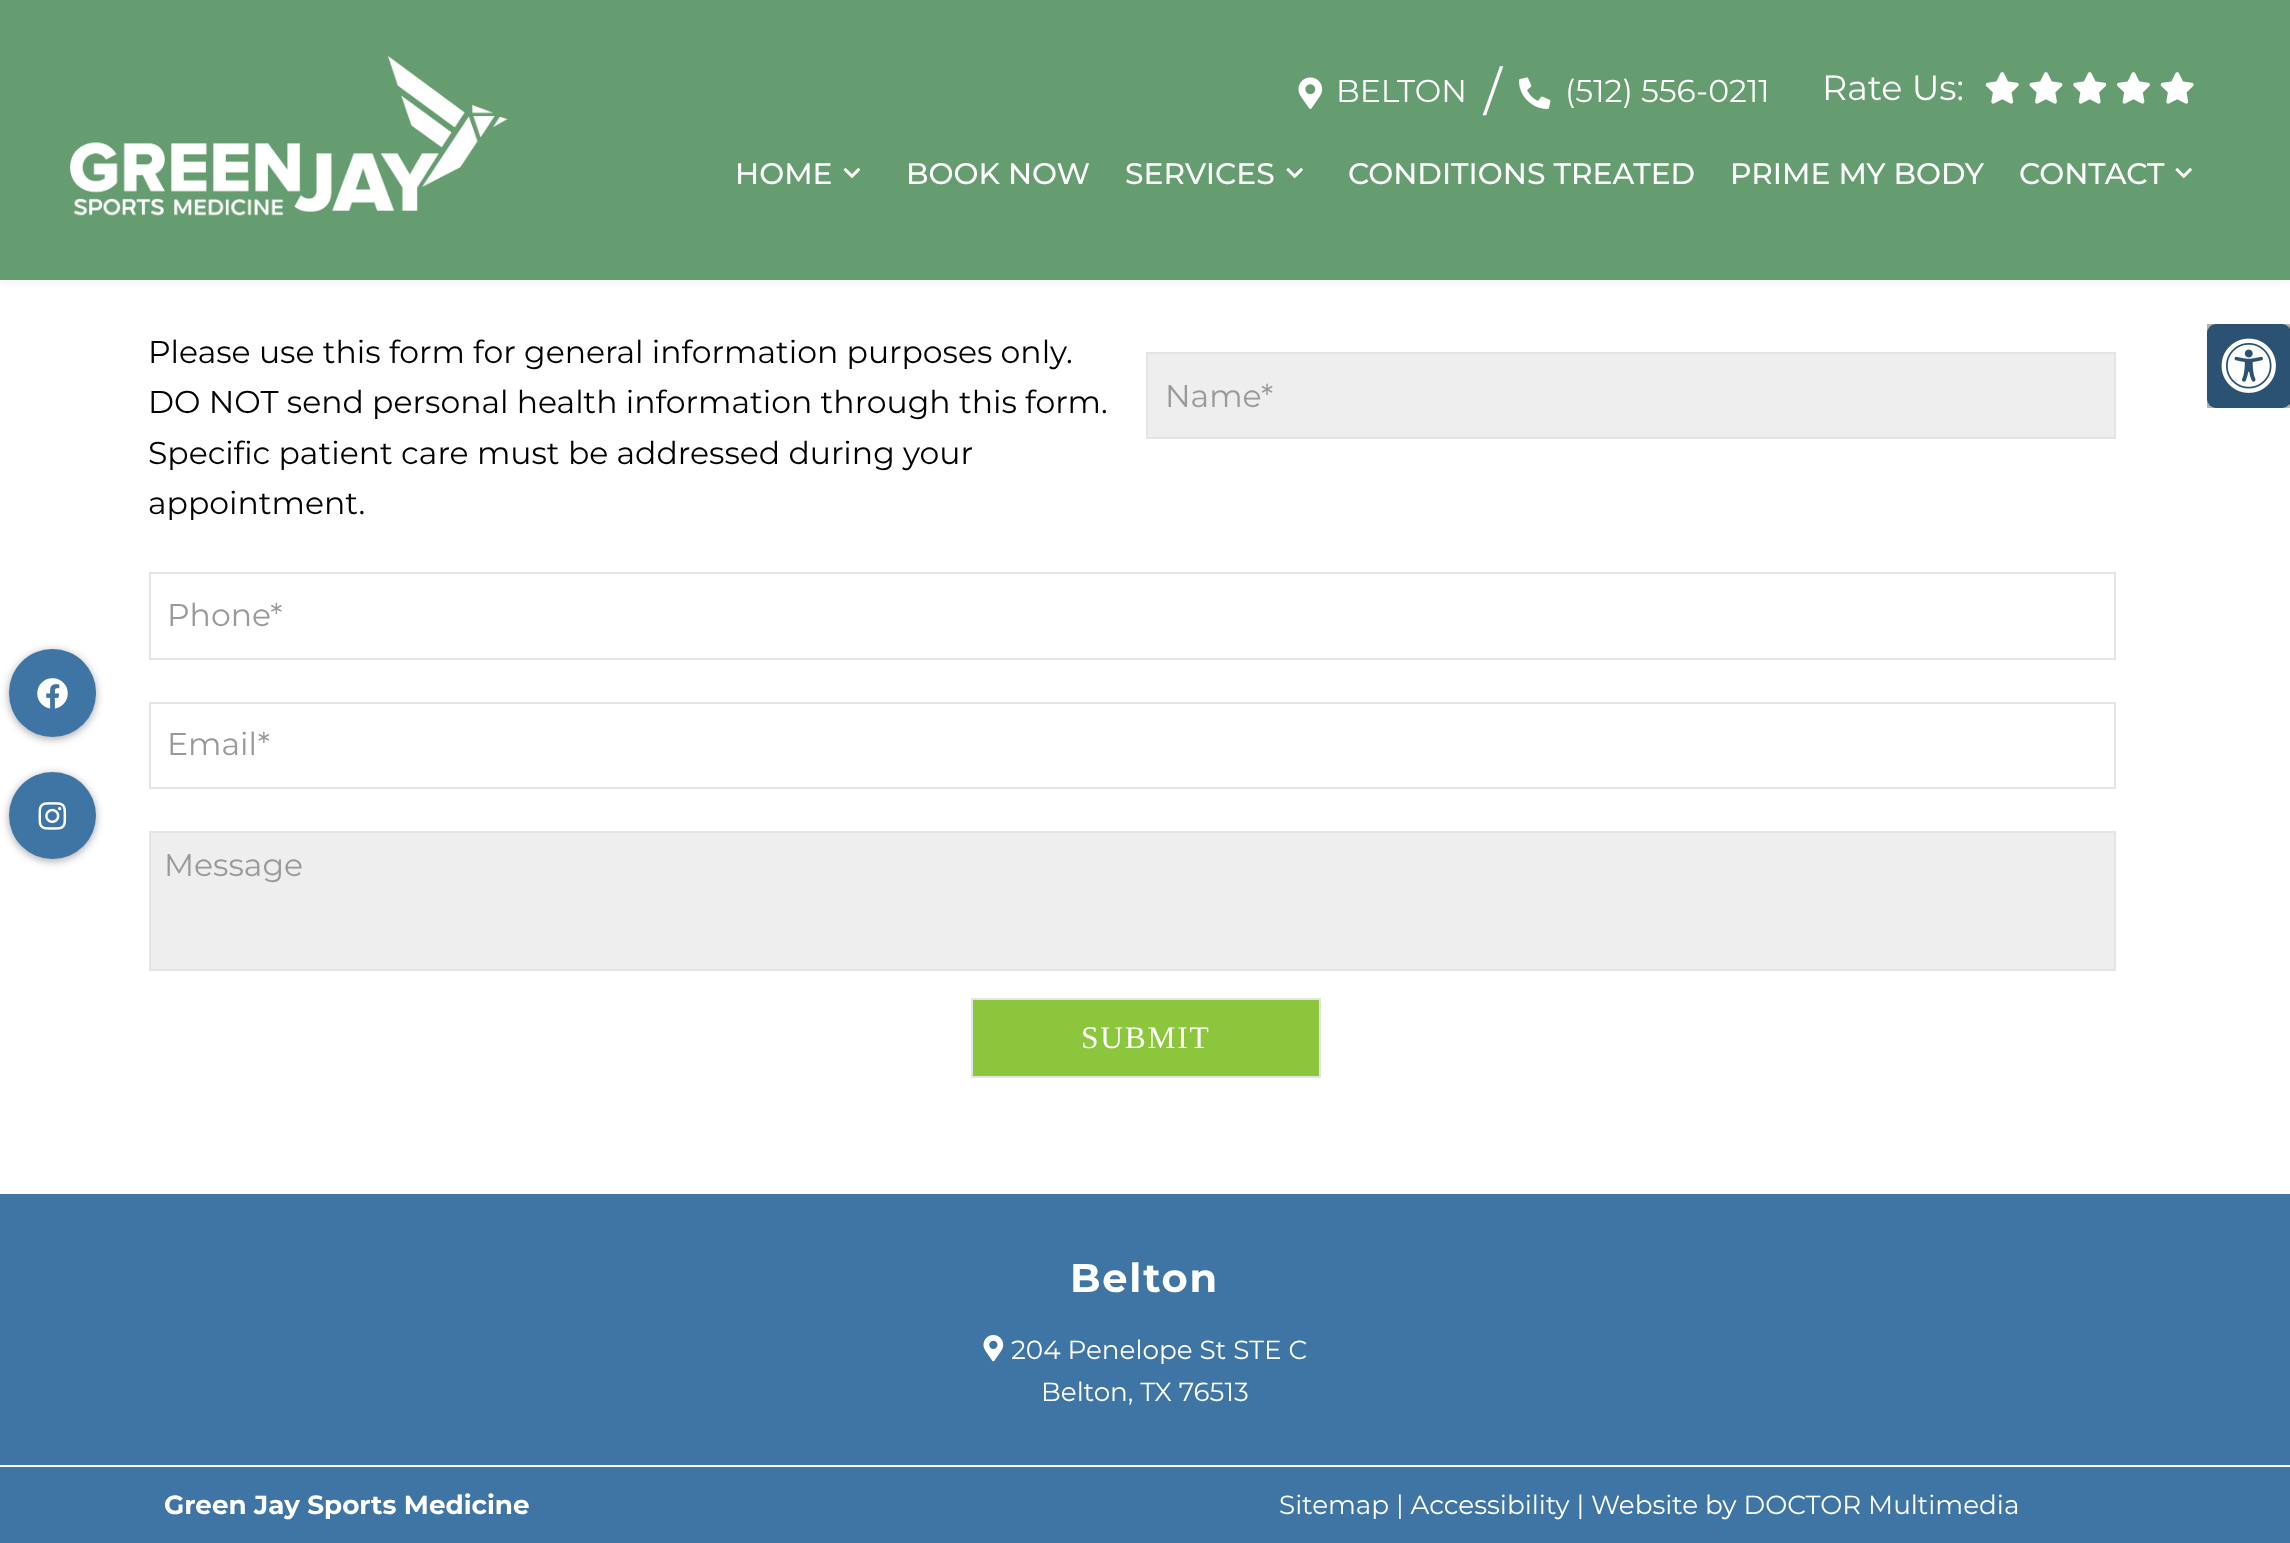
async function draw(canvas) {
	canvas.width = 2290;
	canvas.height = 1543;
	const c = canvas.getContext('2d');
	c.miterLimit = 4;
	c.fontKerning = 'normal';
	async function loadImage(src) {
		const img = new Image();
		img.src = src;
		await img.decode();
		return img;
	}

	c.fillStyle = '#fff';
	c.fillRect(0, 0, 2290, 1543);
	c.fillStyle = '#b3b3b3';
	c.fillRect(2207, 324, 83, 84);
	c.fillStyle = '#0000000f';
	c.filter = 'blur(4.5px)';
	c.beginPath();
	c.rect(0, 2, 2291, 280);
	c.fill();
	c.filter = 'none';
	c.fillStyle = '#669d70';
	c.fillRect(0, 0, 2290, 280);
	c.drawImage(await loadImage('img1.png'), 70, 56, 438, 160);
	c.drawImage(await loadImage('img2.png'), 1298, 77, 25, 32);
	c.font = '31.5px Montserrat';
	c.fillStyle = '#fff';
	c.fillText('BELTON', 1336, 102);
	c.font = '52px Montserrat';
	c.fillText('/', 1484, 110);
	c.drawImage(await loadImage('img3.png'), 1519, 77, 32, 32);
	c.font = '31.5px Montserrat';
	c.fillText('(512) 556-0211', 1565, 102);
	c.font = '35px Montserrat';
	c.fillText('Rate Us:', 1822, 100);
	c.drawImage(await loadImage('img4.png'), 1985, 72, 34, 32);
	c.drawImage(await loadImage('img5.png'), 2029, 72, 34, 32);
	c.drawImage(await loadImage('img6.png'), 2073, 72, 34, 32);
	c.drawImage(await loadImage('img7.png'), 2117, 72, 33, 32);
	c.drawImage(await loadImage('img4.png'), 2160, 72, 34, 32);
	c.font = '500 29.75px Montserrat';
	c.fillText('HOME', 735, 184);
	c.drawImage(await loadImage('img8.png'), 843, 168, 18, 10);
	c.fillText('BOOK NOW', 906, 184);
	c.fillText('SERVICES', 1125, 184);
	c.drawImage(await loadImage('img9.png'), 1286, 168, 17, 10);
	for (const [text, x, y] of [
		['CONDITIONS TREATED', 1348, 184],
		['PRIME MY BODY', 1730, 184],
		['CONTACT', 2019, 184],
	]) {
		c.fillText(text, x, y);
	}
	c.drawImage(await loadImage('img9.png'), 2175, 168, 17, 10);
	c.fillStyle = '#00000057';
	c.filter = 'blur(4.5px)';
	c.beginPath();
	c.roundRect(9, 651, 87, 88, 43.5);
	c.fill();
	c.filter = 'none';
	c.fillStyle = '#3f75a4';
	c.beginPath();
	c.roundRect(9, 649, 87, 88, 43.5);
	c.fill();
	c.drawImage(await loadImage('img10.png'), 37, 678, 31, 31);
	c.fillStyle = '#00000057';
	c.filter = 'blur(4.5px)';
	c.beginPath();
	c.roundRect(9, 774, 87, 87, 43.5);
	c.fill();
	c.filter = 'none';
	c.fillStyle = '#3f75a4';
	c.beginPath();
	c.arc(52.5, 815.5, 43.5, 0, 2 * Math.PI);
	c.fill();
	c.drawImage(await loadImage('img11.png'), 38, 802, 29, 28);
	c.font = '31.5px Montserrat';
	c.fillStyle = '#000';
	for (const [text, x, y] of [
		['Please use this form for general information purposes only.', 148, 363],
		['DO NOT send personal health information through this form.', 148, 413],
		['Specific patient care must be addressed during your', 148, 464],
		['appointment.', 148, 514],
	]) {
		c.fillText(text, x, y);
	}
	c.fillStyle = '#eee';
	c.beginPath();
	c.rect(1147, 353, 968, 85);
	c.fill();
	c.strokeStyle = '#e4e4e4';
	c.lineWidth = 2;
	c.stroke();
	c.fillStyle = '#999';
	c.fillText('Name*', 1165, 407);
	c.strokeRect(150, 573, 1965, 86);
	c.fillText('Phone*', 167, 626);
	c.strokeRect(150, 703, 1965, 85);
	c.fillText('Email*', 167, 755);
	c.fillStyle = '#eee';
	c.beginPath();
	c.rect(150, 832, 1965, 138);
	c.fill();
	c.stroke();
	c.fillStyle = '#999';
	c.fillText('Message', 164, 876);
	c.fillStyle = '#8cc63d';
	c.beginPath();
	c.rect(972, 999, 348, 78);
	c.fill();
	c.stroke();
	c.letterSpacing = '1.75px';
	c.font = '31.5px Liberation Serif';
	c.fillStyle = '#fff';
	c.fillText('SUBMIT', 1081, 1048);
	c.fillStyle = '#2c5273';
	c.beginPath();
	c.roundRect(2207, 324, 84, 84, 9);
	c.fill();
	c.drawImage(await loadImage('img12.png'), 2221, 338, 55, 55);
	c.fillStyle = '#3f75a4';
	c.fillRect(0, 1194, 2290, 349);
	c.font = 'bold 40px Montserrat';
	c.fillStyle = '#fff';
	c.fillText('Belton', 1070, 1292);
	c.drawImage(await loadImage('img13.png'), 983, 1335, 21, 27);
	c.letterSpacing = '0px';
	c.font = '26.25px Montserrat';
	c.fillText('204 Penelope St STE C', 1011, 1359);
	c.fillText('Belton, TX 76513', 1041, 1401);
	c.fillRect(0, 1465, 2290, 2);
	c.font = 'bold 26.25px Montserrat';
	c.fillText('Green Jay Sports Medicine', 164, 1514);
	c.font = '26.25px Montserrat';
	c.fillText('Sitemap | Accessibility | Website by DOCTOR Multimedia', 1279, 1514);
}

draw(document.querySelector('canvas'));
